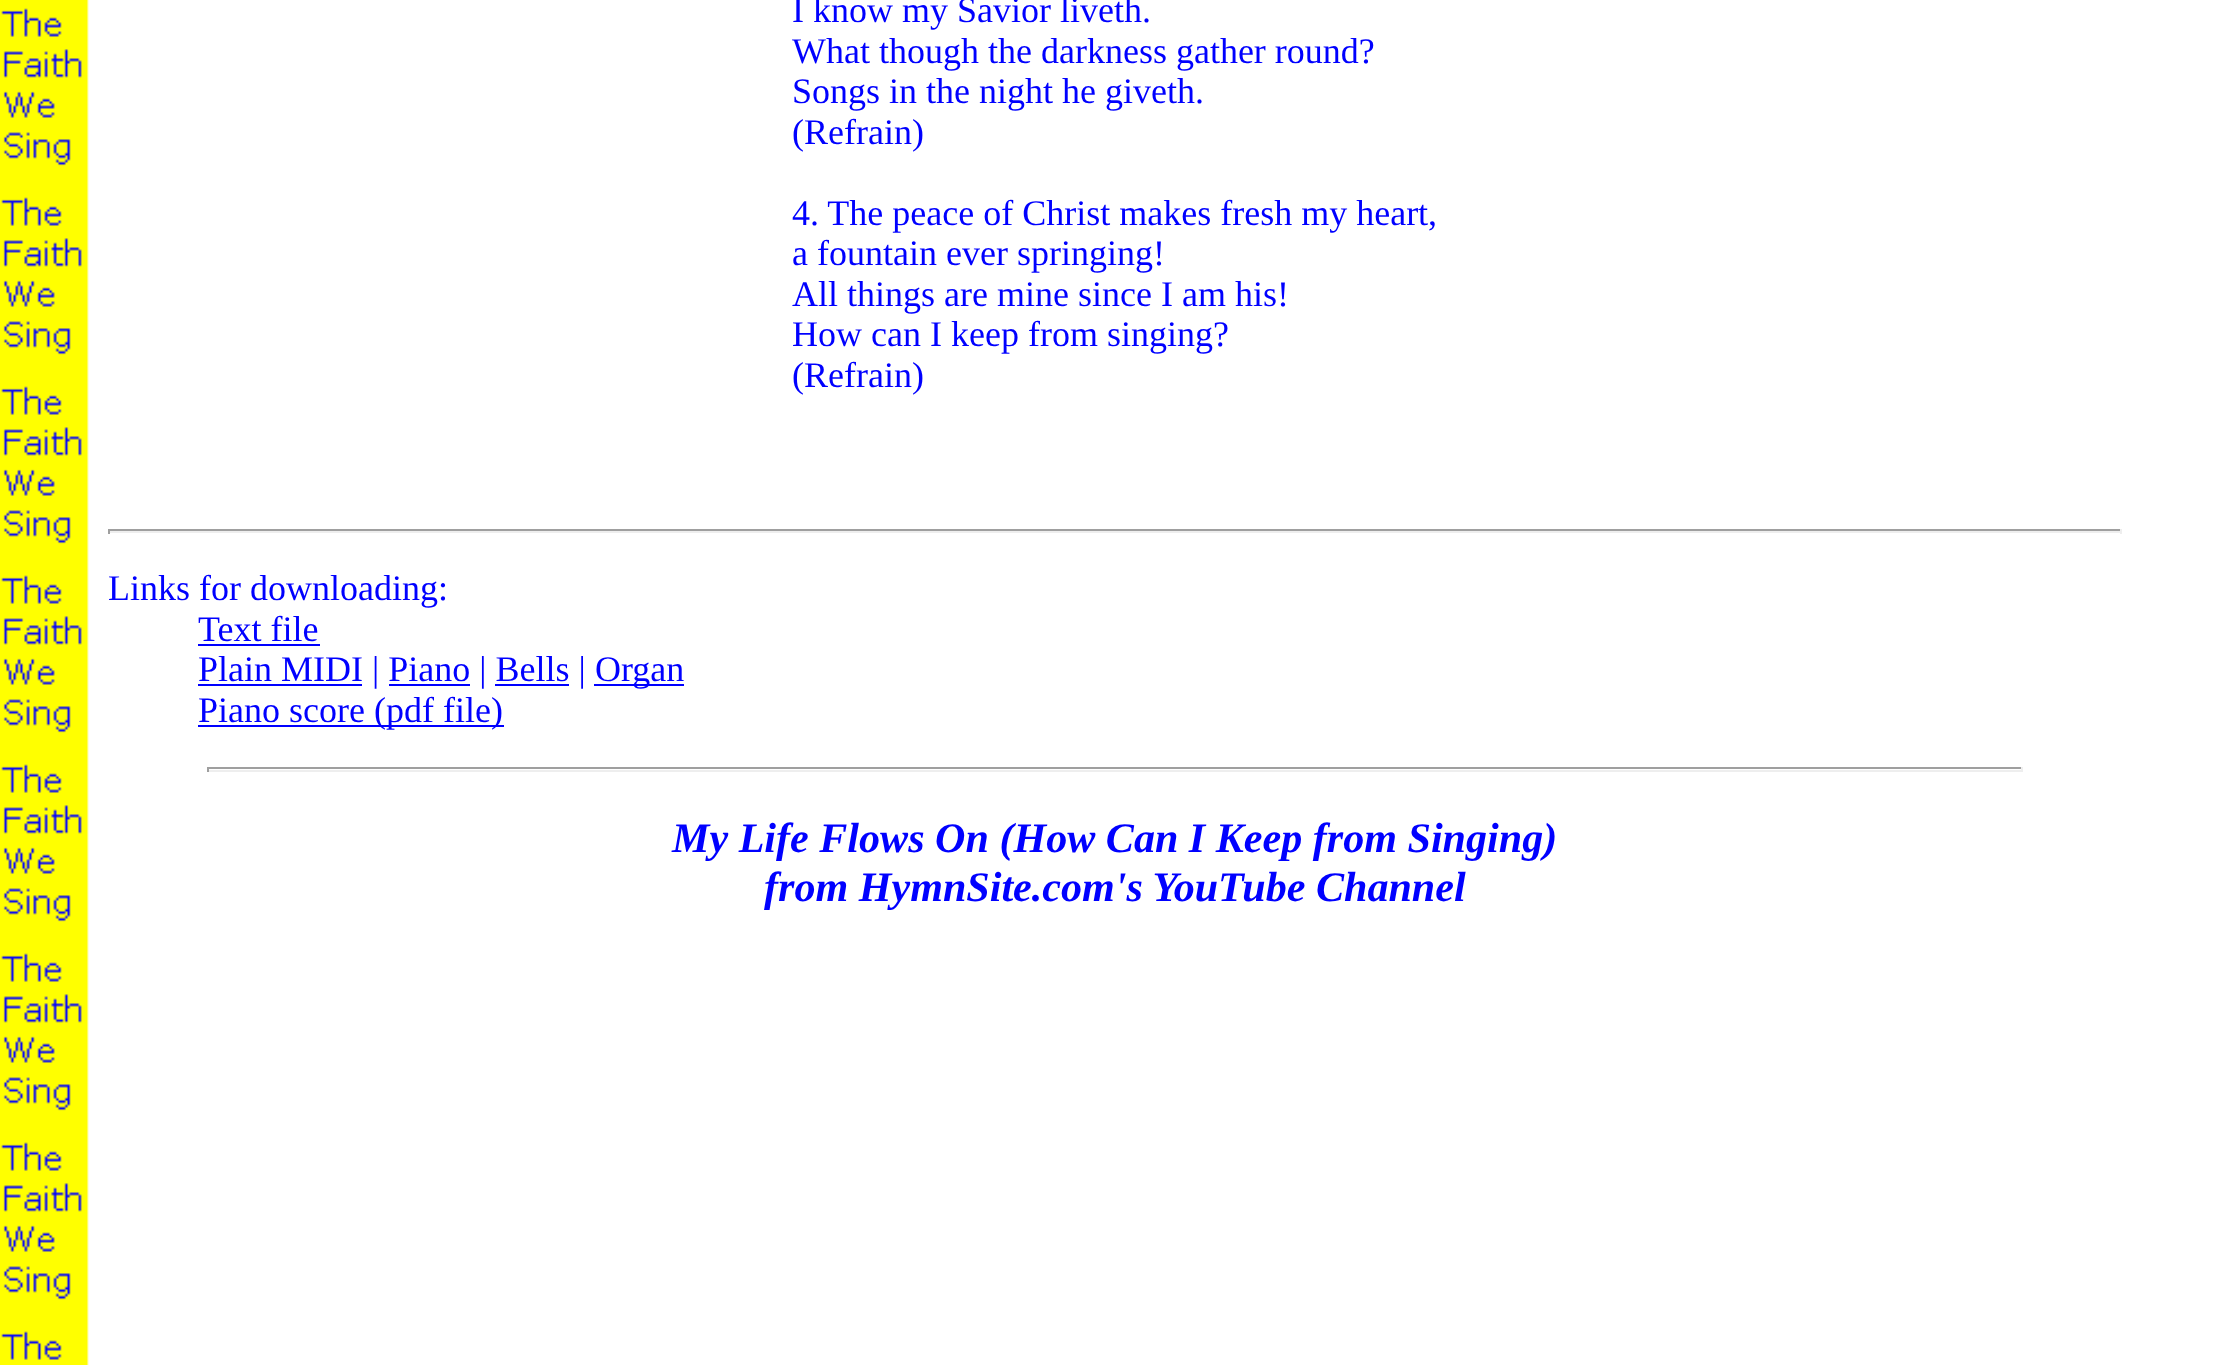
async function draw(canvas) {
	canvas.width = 2228;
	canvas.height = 1365;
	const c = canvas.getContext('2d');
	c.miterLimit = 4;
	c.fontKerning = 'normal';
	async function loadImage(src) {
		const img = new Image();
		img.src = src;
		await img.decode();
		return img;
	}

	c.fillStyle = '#fff';
	c.fillRect(0, 0, 2228, 1365);
	c.drawImage(await loadImage('img1.png'), 0, 0, 89, 1365);
	c.font = '36px Liberation Serif';
	c.fillStyle = '#00f';
	for (const [text, x, y] of [
		['I know my Savior liveth.', 792, 22],
		['What though the darkness gather round?', 792, 63],
		['Songs in the night he giveth.', 792, 103],
		['(Refrain)', 792, 144],
		['4. The peace of Christ makes fresh my heart,', 792, 225],
		['a fountain ever springing!', 792, 265],
		['All things are mine since I am his!', 792, 306],
		['How can I keep from singing?', 792, 346],
		['(Refrain)', 792, 387],
	]) {
		c.fillText(text, x, y);
	}
	for (const [x, y, w, h, color] of [
		[108, 529, 2014, 2, '#9f9f9f'],
		[2120, 529, 2, 5, '#eee'],
		[108, 531, 2014, 2, '#eee'],
		[108, 529, 2, 5, '#9f9f9f'],
	]) {
		c.fillStyle = color;
		c.fillRect(x, y, w, h);
	}
	c.fillStyle = '#00f';
	c.fillText('Links for downloading:', 108, 600);
	c.fillText('Text file', 198, 641);
	c.fillRect(198, 644, 122, 2);
	c.fillRect(198, 684, 164, 2);
	c.fillText('Plain MIDI | Piano | Bells |', 198, 681);
	c.fillRect(594, 684, 90, 2);
	c.fillText('Organ', 595, 681);
	for (const [x, y, w, h, color] of [
		[389, 684, 81, 2, '#00f'],
		[495, 684, 74, 2, '#00f'],
		[198, 725, 306, 2, '#00f'],
	]) {
		c.fillStyle = color;
		c.fillRect(x, y, w, h);
	}
	c.fillText('Piano score (pdf file)', 198, 722);
	for (const [x, y, w, h, color] of [
		[207, 767, 1816, 2, '#9f9f9f'],
		[2021, 767, 2, 5, '#eee'],
		[207, 770, 1816, 2, '#eee'],
		[207, 767, 2, 5, '#9f9f9f'],
	]) {
		c.fillStyle = color;
		c.fillRect(x, y, w, h);
	}
	c.font = 'italic bold 42.1px Liberation Serif';
	c.fillStyle = '#00f';
	c.fillText('My Life Flows On (How Can I Keep from Singing)', 672, 852);
	c.fillText('from HymnSite.com\'s YouTube Channel', 764, 901);
}

draw(document.querySelector('canvas'));
